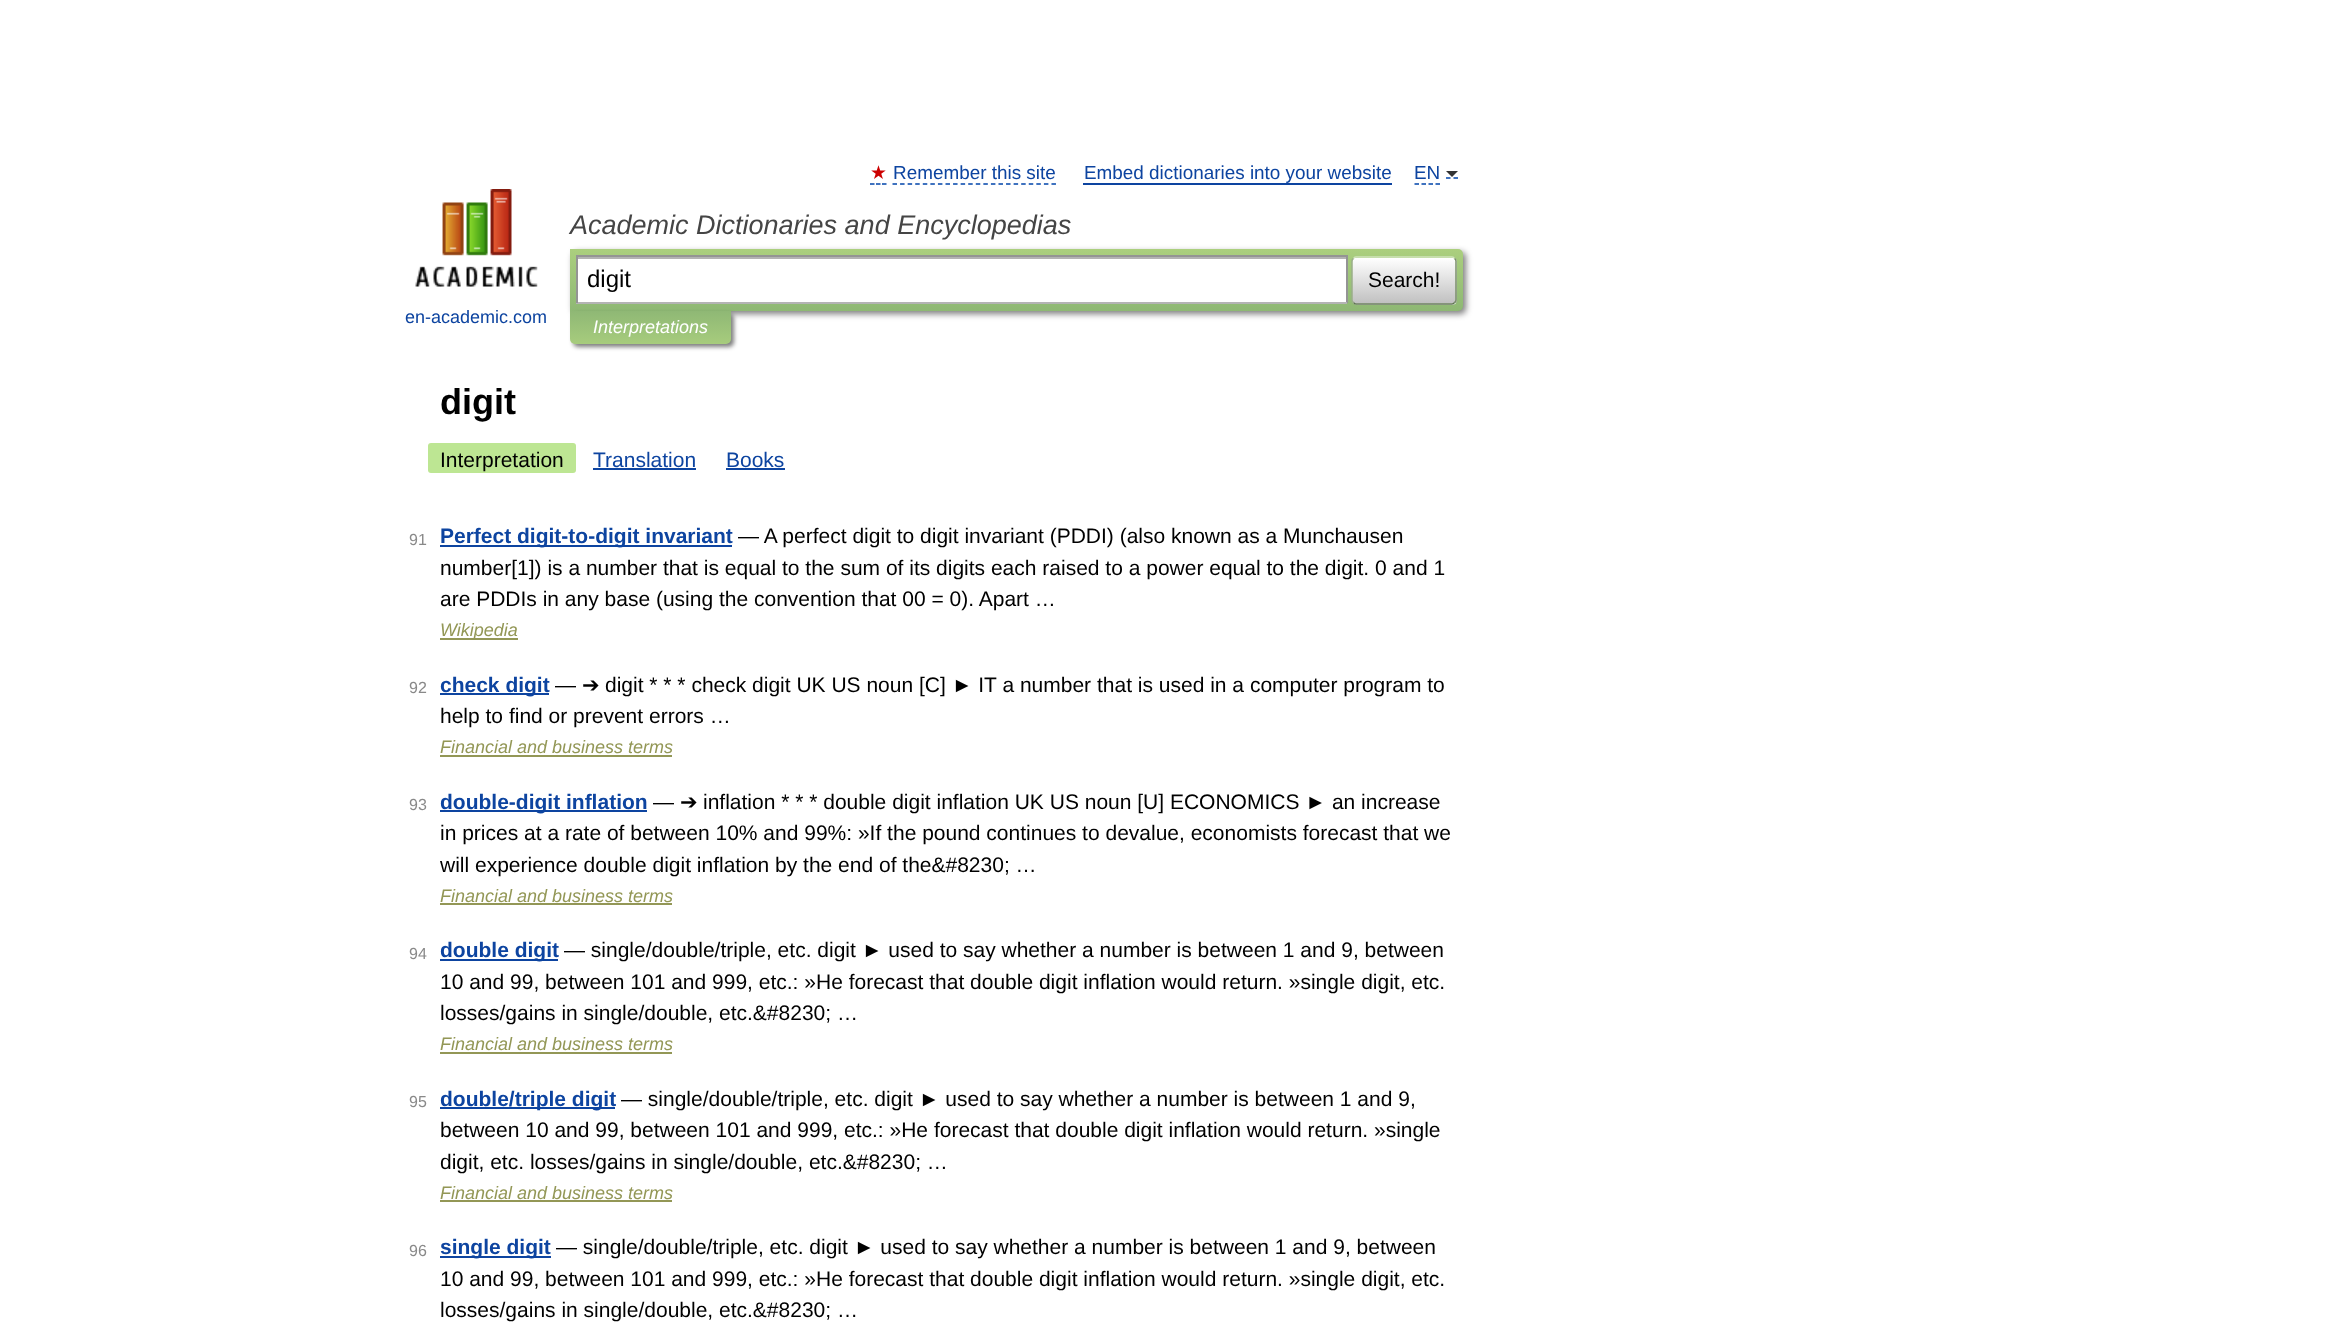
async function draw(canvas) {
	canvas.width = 2340;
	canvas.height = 1333;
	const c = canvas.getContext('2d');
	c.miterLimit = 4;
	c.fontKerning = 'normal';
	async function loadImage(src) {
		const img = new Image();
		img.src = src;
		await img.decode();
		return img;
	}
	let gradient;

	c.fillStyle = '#fff';
	c.fillRect(0, 0, 2340, 1333);
	c.font = '18.9px DejaVu Sans';
	c.fillStyle = '#c00';
	c.fillText('★', 870, 179);
	c.beginPath();
	c.moveTo(870, 184);
	c.lineTo(874.5, 184);
	c.moveTo(876, 184);
	c.lineTo(880.5, 184);
	c.moveTo(882, 184);
	c.lineTo(886.5, 184);
	c.strokeStyle = '#04a';
	c.lineWidth = 1.5;
	c.stroke();
	c.font = '18.9px Liberation Sans';
	c.fillStyle = '#0d44a0';
	c.fillText('Remember this site', 893, 179);
	c.beginPath();
	c.moveTo(892.5, 184);
	c.lineTo(1056, 184);
	c.setLineDash([4.5, 3.07]);
	c.stroke();
	c.fillText('Embed dictionaries into your website', 1084, 179);
	c.fillRect(1083, 183, 309, 2);
	c.beginPath();
	c.moveTo(1414.5, 184);
	c.lineTo(1440, 184);
	c.setLineDash([4.5, 2.5]);
	c.stroke();
	c.beginPath();
	c.moveTo(1446, 178);
	c.lineTo(1450.5, 178);
	c.moveTo(1453.5, 178);
	c.lineTo(1458, 178);
	c.setLineDash([]);
	c.stroke();
	c.fillText('EN', 1414, 179);
	c.fillStyle = '#333';
	c.beginPath();
	c.moveTo(1446, 171);
	c.lineTo(1458, 171);
	c.lineTo(1452, 177);
	c.closePath();
	c.fill();
	c.font = 'italic 27px Liberation Sans';
	c.fillStyle = '#454545';
	c.fillText('Academic Dictionaries and Encyclopedias', 570, 234);
	c.fillStyle = '#00000080';
	c.filter = 'blur(3px)';
	c.beginPath();
	c.roundRect(573, 252, 893, 62, 5);
	c.fill();
	c.filter = 'none';
	gradient = c.createLinearGradient(1016, 249, 1016, 311);
	gradient.addColorStop(0, '#abcf7e');
	gradient.addColorStop(1, '#8eb874');
	c.fillStyle = gradient;
	c.beginPath();
	c.roundRect(570, 249, 893, 62, [0, 5, 5, 0]);
	c.fill();
	for (const [x, y, w, h, color] of [
		[578, 259, 768, 43, '#fff'],
		[578, 257, 768, 2, '#b3b3b3'],
		[576, 255, 771, 2, '#949494'],
		[1346, 255, 2, 48, '#949494'],
		[576, 302, 771, 2, '#b4b4b4'],
		[576, 255, 2, 48, '#949494'],
	]) {
		c.fillStyle = color;
		c.fillRect(x, y, w, h);
	}
	c.font = '24px Liberation Sans';
	c.fillStyle = '#000';
	c.fillText('digit', 587, 287);
	c.save();
	c.beginPath();
	c.roundRect(1352, 257, 105, 48, 5);
	c.clip();
	gradient = c.createLinearGradient(1404, 258, 1404, 303);
	gradient.addColorStop(0, '#fff');
	gradient.addColorStop(1, '#c1c1c1');
	c.fillStyle = gradient;
	c.fillRect(1352, 258, 105, 45);
	gradient = c.createLinearGradient(1404, 303, 1404, 348);
	gradient.addColorStop(0, '#fff');
	gradient.addColorStop(1, '#c1c1c1');
	c.fillStyle = gradient;
	c.fillRect(1352, 303, 105, 2);
	c.restore();
	c.beginPath();
	c.moveTo(1353.5, 258.5);
	c.bezierCurveTo(1354, 257.5, 1355, 257, 1356, 257);
	c.lineTo(1452, 257);
	c.bezierCurveTo(1453, 257, 1454, 257.5, 1454.5, 258.5);
	c.strokeStyle = '#d1e4bc';
	c.stroke();
	c.beginPath();
	c.moveTo(1454.5, 258.5);
	c.bezierCurveTo(1455.5, 259, 1456, 260, 1456, 261);
	c.lineTo(1456, 300);
	c.bezierCurveTo(1456, 301, 1455.5, 302, 1454.5, 302.5);
	c.strokeStyle = '#7a8e69';
	c.stroke();
	c.beginPath();
	c.moveTo(1454.5, 302.5);
	c.bezierCurveTo(1454, 303.5, 1453, 304, 1452, 304);
	c.lineTo(1356, 304);
	c.bezierCurveTo(1355, 304, 1354, 303.5, 1353.5, 302.5);
	c.strokeStyle = '#5d7250';
	c.stroke();
	c.beginPath();
	c.moveTo(1353.5, 302.5);
	c.bezierCurveTo(1352.5, 302, 1352, 301, 1352, 300);
	c.lineTo(1352, 261);
	c.bezierCurveTo(1352, 260, 1352.5, 259, 1353.5, 258.5);
	c.strokeStyle = '#9aae89';
	c.stroke();
	c.font = '21px Liberation Sans';
	c.fillText('Search!', 1368, 287);
	c.drawImage(await loadImage('img1.png'), 415, 189, 123, 98);
	c.font = '18px Liberation Sans';
	c.fillStyle = '#0d44a0';
	c.fillText('en-academic.com', 405, 323);
	c.fillStyle = '#00000080';
	c.filter = 'blur(2px)';
	c.beginPath();
	c.roundRect(573, 314, 161, 33, 5);
	c.fill();
	c.filter = 'none';
	gradient = c.createLinearGradient(650, 311, 650, 344);
	gradient.addColorStop(0, '#8fb875');
	gradient.addColorStop(1, '#a7cc7d');
	c.fillStyle = gradient;
	c.beginPath();
	c.roundRect(570, 311, 161, 33, [0, 0, 5, 5]);
	c.fill();
	c.font = 'italic 18px Liberation Sans';
	c.fillStyle = '#fff';
	c.fillText('Interpretations', 593, 333);
	c.font = 'bold 36px Liberation Sans';
	c.fillStyle = '#000';
	c.fillText('digit', 440, 414);
	c.fillStyle = '#bde693';
	c.beginPath();
	c.roundRect(428, 443, 148, 30, 3);
	c.fill();
	c.font = '21px Liberation Sans';
	c.fillStyle = '#000';
	c.fillText('Interpretation', 440, 467);
	c.fillStyle = '#0d44a0';
	c.fillText('Translation', 593, 467);
	c.fillRect(593, 468, 103, 2);
	c.fillText('Books', 726, 467);
	c.fillRect(726, 468, 59, 2);
	c.font = '16px Liberation Sans';
	c.fillStyle = '#898989';
	c.fillText('91', 409, 545);
	c.fillStyle = '#0d44a0';
	c.fillRect(440, 545, 292, 2);
	c.font = 'bold 21px Liberation Sans';
	c.fillText('Perfect digit-to-digit invariant', 440, 543);
	c.font = '21px Liberation Sans';
	c.fillStyle = '#000';
	for (const [text, x, y] of [
		['— A perfect digit to digit invariant (PDDI) (also known as a Munchausen', 738, 543],
		['number[1]) is a number that is equal to the sum of its digits each raised to a power equal to the digit. 0 and 1', 440, 575],
		['are PDDIs in any base (using the convention that 00 = 0). Apart …', 440, 606],
	]) {
		c.fillText(text, x, y);
	}
	c.fillStyle = '#939756';
	c.fillRect(440, 638, 78, 2);
	c.font = 'italic 18px Liberation Sans';
	c.fillText('Wikipedia', 440, 636);
	c.font = '16px Liberation Sans';
	c.fillStyle = '#898989';
	c.fillText('92', 409, 693);
	c.fillStyle = '#0d44a0';
	c.fillRect(440, 693, 109, 2);
	c.font = 'bold 21px Liberation Sans';
	c.fillText('check digit', 440, 692);
	c.font = '21px Liberation Sans';
	c.fillStyle = '#000';
	c.fillText('—', 555, 692);
	c.font = '21px DejaVu Sans';
	c.fillText('➔', 582, 692);
	c.font = '21px Liberation Sans';
	c.fillText('digit * * * check digit UK US noun [C] ► IT a number that is used in a computer program to', 605, 692);
	c.fillText('help to find or prevent errors …', 440, 723);
	c.font = 'italic 18px Liberation Sans';
	c.fillStyle = '#939756';
	c.fillText('Financial and business terms', 440, 753);
	c.fillRect(440, 755, 232, 2);
	c.font = '16px Liberation Sans';
	c.fillStyle = '#898989';
	c.fillText('93', 409, 810);
	c.fillStyle = '#0d44a0';
	c.fillRect(440, 810, 207, 2);
	c.font = 'bold 21px Liberation Sans';
	c.fillText('double-digit inflation', 440, 809);
	c.font = '21px Liberation Sans';
	c.fillStyle = '#000';
	c.fillText('—', 653, 809);
	c.font = '21px DejaVu Sans';
	c.fillText('➔', 680, 809);
	c.font = '21px Liberation Sans';
	for (const [text, x, y] of [
		['inflation * * * double digit inflation UK US noun [U] ECONOMICS ► an increase', 703, 809],
		['in prices at a rate of between 10% and 99%: »If the pound continues to devalue, economists forecast that we', 440, 840],
		['will experience double digit inflation by the end of the&#8230; …', 440, 872],
	]) {
		c.fillText(text, x, y);
	}
	c.font = 'italic 18px Liberation Sans';
	c.fillStyle = '#939756';
	c.fillText('Financial and business terms', 440, 902);
	c.fillRect(440, 903, 232, 2);
	c.font = '16px Liberation Sans';
	c.fillStyle = '#898989';
	c.fillText('94', 409, 959);
	c.fillStyle = '#0d44a0';
	c.fillRect(440, 959, 118, 2);
	c.font = 'bold 21px Liberation Sans';
	c.fillText('double digit', 440, 957);
	c.font = '21px Liberation Sans';
	c.fillStyle = '#000';
	for (const [text, x, y] of [
		['— single/double/triple, etc. digit ► used to say whether a number is between 1 and 9, between', 564, 957],
		['10 and 99, between 101 and 999, etc.: »He forecast that double digit inflation would return. »single digit, etc.', 440, 989],
		['losses/gains in single/double, etc.&#8230; …', 440, 1020],
	]) {
		c.fillText(text, x, y);
	}
	c.font = 'italic 18px Liberation Sans';
	c.fillStyle = '#939756';
	c.fillText('Financial and business terms', 440, 1050);
	c.fillRect(440, 1052, 232, 2);
	c.font = '16px Liberation Sans';
	c.fillStyle = '#898989';
	c.fillText('95', 409, 1107);
	c.fillStyle = '#0d44a0';
	c.fillRect(440, 1107, 175, 2);
	c.font = 'bold 21px Liberation Sans';
	c.fillText('double/triple digit', 440, 1106);
	c.font = '21px Liberation Sans';
	c.fillStyle = '#000';
	for (const [text, x, y] of [
		['— single/double/triple, etc. digit ► used to say whether a number is between 1 and 9,', 621, 1106],
		['between 10 and 99, between 101 and 999, etc.: »He forecast that double digit inflation would return. »single', 440, 1137],
		['digit, etc. losses/gains in single/double, etc.&#8230; …', 440, 1169],
	]) {
		c.fillText(text, x, y);
	}
	c.font = 'italic 18px Liberation Sans';
	c.fillStyle = '#939756';
	c.fillText('Financial and business terms', 440, 1199);
	c.fillRect(440, 1200, 232, 2);
	c.font = '16px Liberation Sans';
	c.fillStyle = '#898989';
	c.fillText('96', 409, 1256);
	c.fillStyle = '#0d44a0';
	c.fillRect(440, 1256, 111, 2);
	c.font = 'bold 21px Liberation Sans';
	c.fillText('single digit', 440, 1254);
	c.font = '21px Liberation Sans';
	c.fillStyle = '#000';
	for (const [text, x, y] of [
		['— single/double/triple, etc. digit ► used to say whether a number is between 1 and 9, between', 556, 1254],
		['10 and 99, between 101 and 999, etc.: »He forecast that double digit inflation would return. »single digit, etc.', 440, 1286],
		['losses/gains in single/double, etc.&#8230; …', 440, 1317],
	]) {
		c.fillText(text, x, y);
	}
}

draw(document.querySelector('canvas'));
